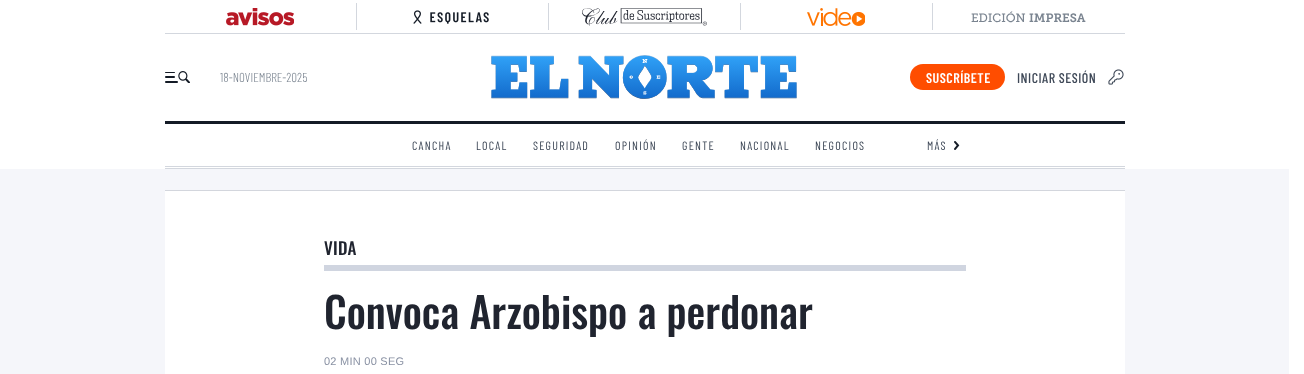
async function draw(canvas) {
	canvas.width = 1304;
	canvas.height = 374;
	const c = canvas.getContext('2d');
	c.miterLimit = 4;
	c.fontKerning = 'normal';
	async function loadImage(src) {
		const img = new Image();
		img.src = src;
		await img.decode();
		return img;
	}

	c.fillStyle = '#fff';
	c.fillRect(0, 0, 1304, 374);
	c.fillStyle = '#d3d7de';
	c.fillRect(165, 33, 960, 1);
	c.fillRect(356, 3, 1, 27);
	c.drawImage(await loadImage('img1.png'), 226, 8, 68, 18);
	c.fillRect(548, 3, 1, 27);
	c.drawImage(await loadImage('img2.png'), 413, 10, 76, 14);
	c.fillRect(740, 3, 1, 27);
	c.drawImage(await loadImage('img3.png'), 582, 8, 125, 18);
	c.fillRect(932, 3, 1, 27);
	c.drawImage(await loadImage('img4.png'), 807, 8, 58, 18);
	c.font = '12px Museo Slab';
	c.fillStyle = '#7a8490';
	c.fillText('EDICIÓN', 971, 22);
	c.font = '600 12px Museo Slab';
	c.fillText('IMPRESA', 1029, 22);
	c.fillStyle = '#141b26';
	c.fillRect(165, 121, 960, 3);
	c.drawImage(await loadImage('img5.png'), 165, 71, 25, 12);
	c.font = '300 13px Barlow Condensed';
	c.fillStyle = '#7a8490';
	c.fillText('18-NOVIEMBRE-2025', 220, 82);
	c.drawImage(await loadImage('img6.png'), 491, 55, 306, 44);
	c.fillStyle = '#ff4d00';
	c.beginPath();
	c.roundRect(910, 64, 95, 26, 13);
	c.fill();
	c.letterSpacing = '0.5px';
	c.font = '600 14px Barlow Condensed';
	c.fillStyle = '#fff';
	c.fillText('SUSCRÍBETE', 926, 83);
	c.font = '500 14px Barlow Condensed';
	c.fillStyle = '#3e4857';
	c.fillText('INICIAR SESIÓN', 1017, 83);
	c.drawImage(await loadImage('img7.png'), 1108, 69, 16, 16);
	c.fillStyle = '#d3d7de';
	c.fillRect(165, 166, 960, 1);
	c.fillRect(165, 168, 960, 1);
	c.letterSpacing = '1.25px';
	c.font = '12px Barlow Condensed';
	c.fillStyle = '#3e4857';
	for (const [text, x, y] of [
		['CANCHA', 412, 150],
		['LOCAL', 476, 150],
		['SEGURIDAD', 533, 150],
		['OPINIÓN', 615, 150],
		['GENTE', 682, 150],
		['NACIONAL', 740, 150],
		['NEGOCIOS', 815, 150],
		['MÁS', 927, 150],
	]) {
		c.fillText(text, x, y);
	}
	c.drawImage(await loadImage('img8.png'), 954, 141, 6, 9);
	for (const [x, y, w, h, color] of [
		[0, 169, 1289, 205, '#f5f6fa'],
		[165, 191, 960, 183, '#fff'],
		[165, 190, 960, 1, '#d3d6dd'],
		[324, 265, 642, 6, '#d0d5e0'],
	]) {
		c.fillStyle = color;
		c.fillRect(x, y, w, h);
	}
	c.letterSpacing = '0.25px';
	c.font = '500 17px Oswald';
	c.fillStyle = '#20242f';
	c.fillText('VIDA', 324, 255);
	c.letterSpacing = '0px';
	c.font = '500 42px Oswald';
	c.fillText('Convoca Arzobispo a perdonar', 324, 329);
	c.letterSpacing = '0.25px';
	c.font = '11px Liberation Sans';
	c.fillStyle = '#8991a3';
	c.fillText('02 MIN 00 SEG', 324, 365);
}

draw(document.querySelector('canvas'));
